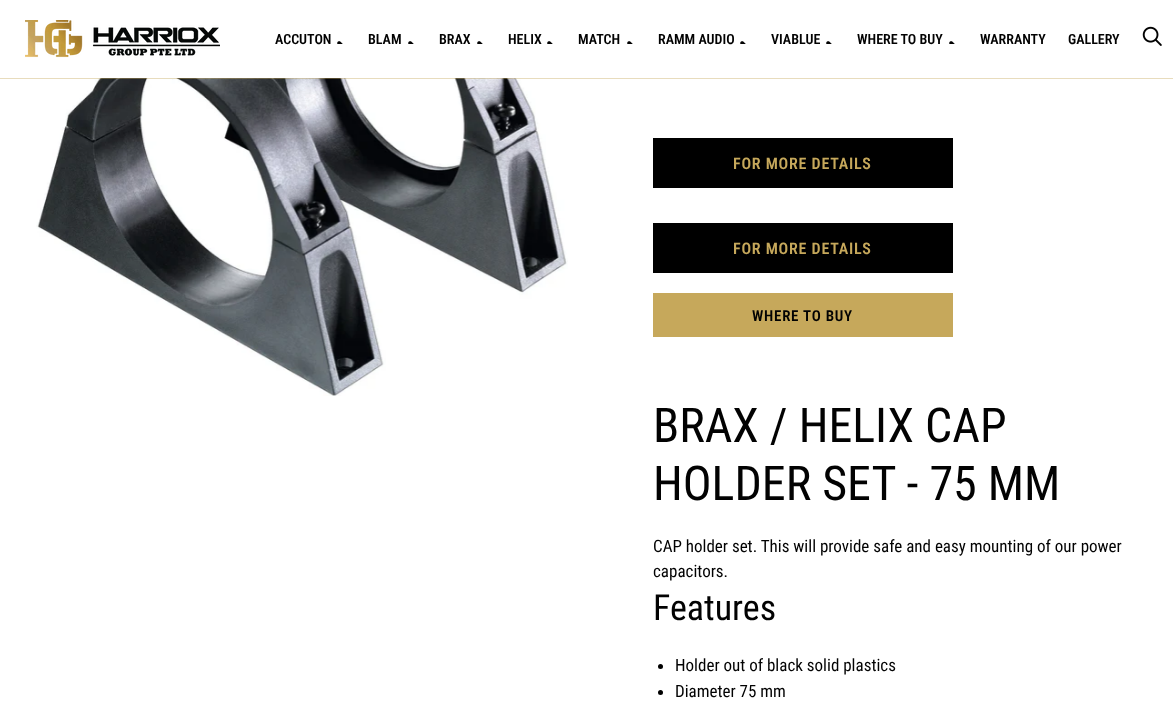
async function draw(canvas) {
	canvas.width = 1173;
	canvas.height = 704;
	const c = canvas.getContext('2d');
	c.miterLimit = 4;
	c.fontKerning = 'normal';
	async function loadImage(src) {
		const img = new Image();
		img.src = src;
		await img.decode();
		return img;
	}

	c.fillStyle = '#fff';
	c.fillRect(0, 0, 1173, 704);
	c.drawImage(await loadImage('img4.png'), 36, 78, 532, 318);
	c.fillStyle = '#c6a85b66';
	c.fillRect(0, 78, 1173, 1);
	c.drawImage(await loadImage('img1.png'), 25, 20, 195, 38);
	c.font = '600 14px Roboto Condensed';
	c.fillStyle = '#020202';
	c.fillText('ACCUTON', 275, 44);
	c.drawImage(await loadImage('img2.png'), 337, 41, 6, 3);
	c.fillText('BLAM', 368, 44);
	c.drawImage(await loadImage('img2.png'), 408, 41, 6, 3);
	c.fillText('BRAX', 439, 44);
	c.drawImage(await loadImage('img2.png'), 477, 41, 6, 3);
	c.fillText('HELIX', 508, 44);
	c.drawImage(await loadImage('img2.png'), 547, 41, 6, 3);
	c.fillText('MATCH', 578, 44);
	c.drawImage(await loadImage('img2.png'), 627, 41, 6, 3);
	c.fillText('RAMM AUDIO', 658, 44);
	c.drawImage(await loadImage('img2.png'), 740, 41, 6, 3);
	c.fillText('VIABLUE', 771, 44);
	c.drawImage(await loadImage('img2.png'), 826, 41, 6, 3);
	c.fillText('WHERE TO BUY', 857, 44);
	c.drawImage(await loadImage('img2.png'), 949, 41, 6, 3);
	c.fillText('WARRANTY', 980, 44);
	c.fillText('GALLERY', 1068, 44);
	c.drawImage(await loadImage('img3.png'), 1142, 26, 20, 20);
	c.fillStyle = '#000';
	c.fillRect(653, 138, 300, 50);
	c.letterSpacing = '0.75px';
	c.font = '600 16px Roboto Condensed';
	c.fillStyle = '#c6a85b';
	c.fillText('FOR MORE DETAILS', 733, 169);
	c.fillStyle = '#000';
	c.fillRect(653, 223, 300, 50);
	c.fillStyle = '#c6a85b';
	c.fillText('FOR MORE DETAILS', 733, 254);
	c.fillRect(653, 293, 300, 44);
	c.font = '600 15px Roboto Condensed';
	c.fillStyle = '#020202';
	c.fillText('WHERE TO BUY', 752, 321);
	c.letterSpacing = '0px';
	c.font = '48px Roboto Condensed';
	c.fillText('BRAX / HELIX CAP', 653, 442);
	c.fillText('HOLDER SET - 75 MM', 653, 500);
	c.font = '17px Roboto Condensed';
	c.fillText('CAP holder set. This will provide safe and easy mounting of our power', 653, 552);
	c.fillText('capacitors.', 653, 577);
	c.font = '36px Roboto Condensed';
	c.fillText('Features', 653, 620);
	c.fillStyle = '#000';
	c.beginPath();
	c.arc(660.5, 666.5, 2.5, 0, 2 * Math.PI);
	c.fill();
	c.font = '17px Roboto Condensed';
	c.fillStyle = '#020202';
	c.fillText('Holder out of black solid plastics', 675, 671);
	c.fillStyle = '#000';
	c.beginPath();
	c.arc(660.5, 692.5, 2.5, 0, 2 * Math.PI);
	c.fill();
	c.fillStyle = '#020202';
	c.fillText('Diameter 75 mm', 675, 697);
}

draw(document.querySelector('canvas'));
